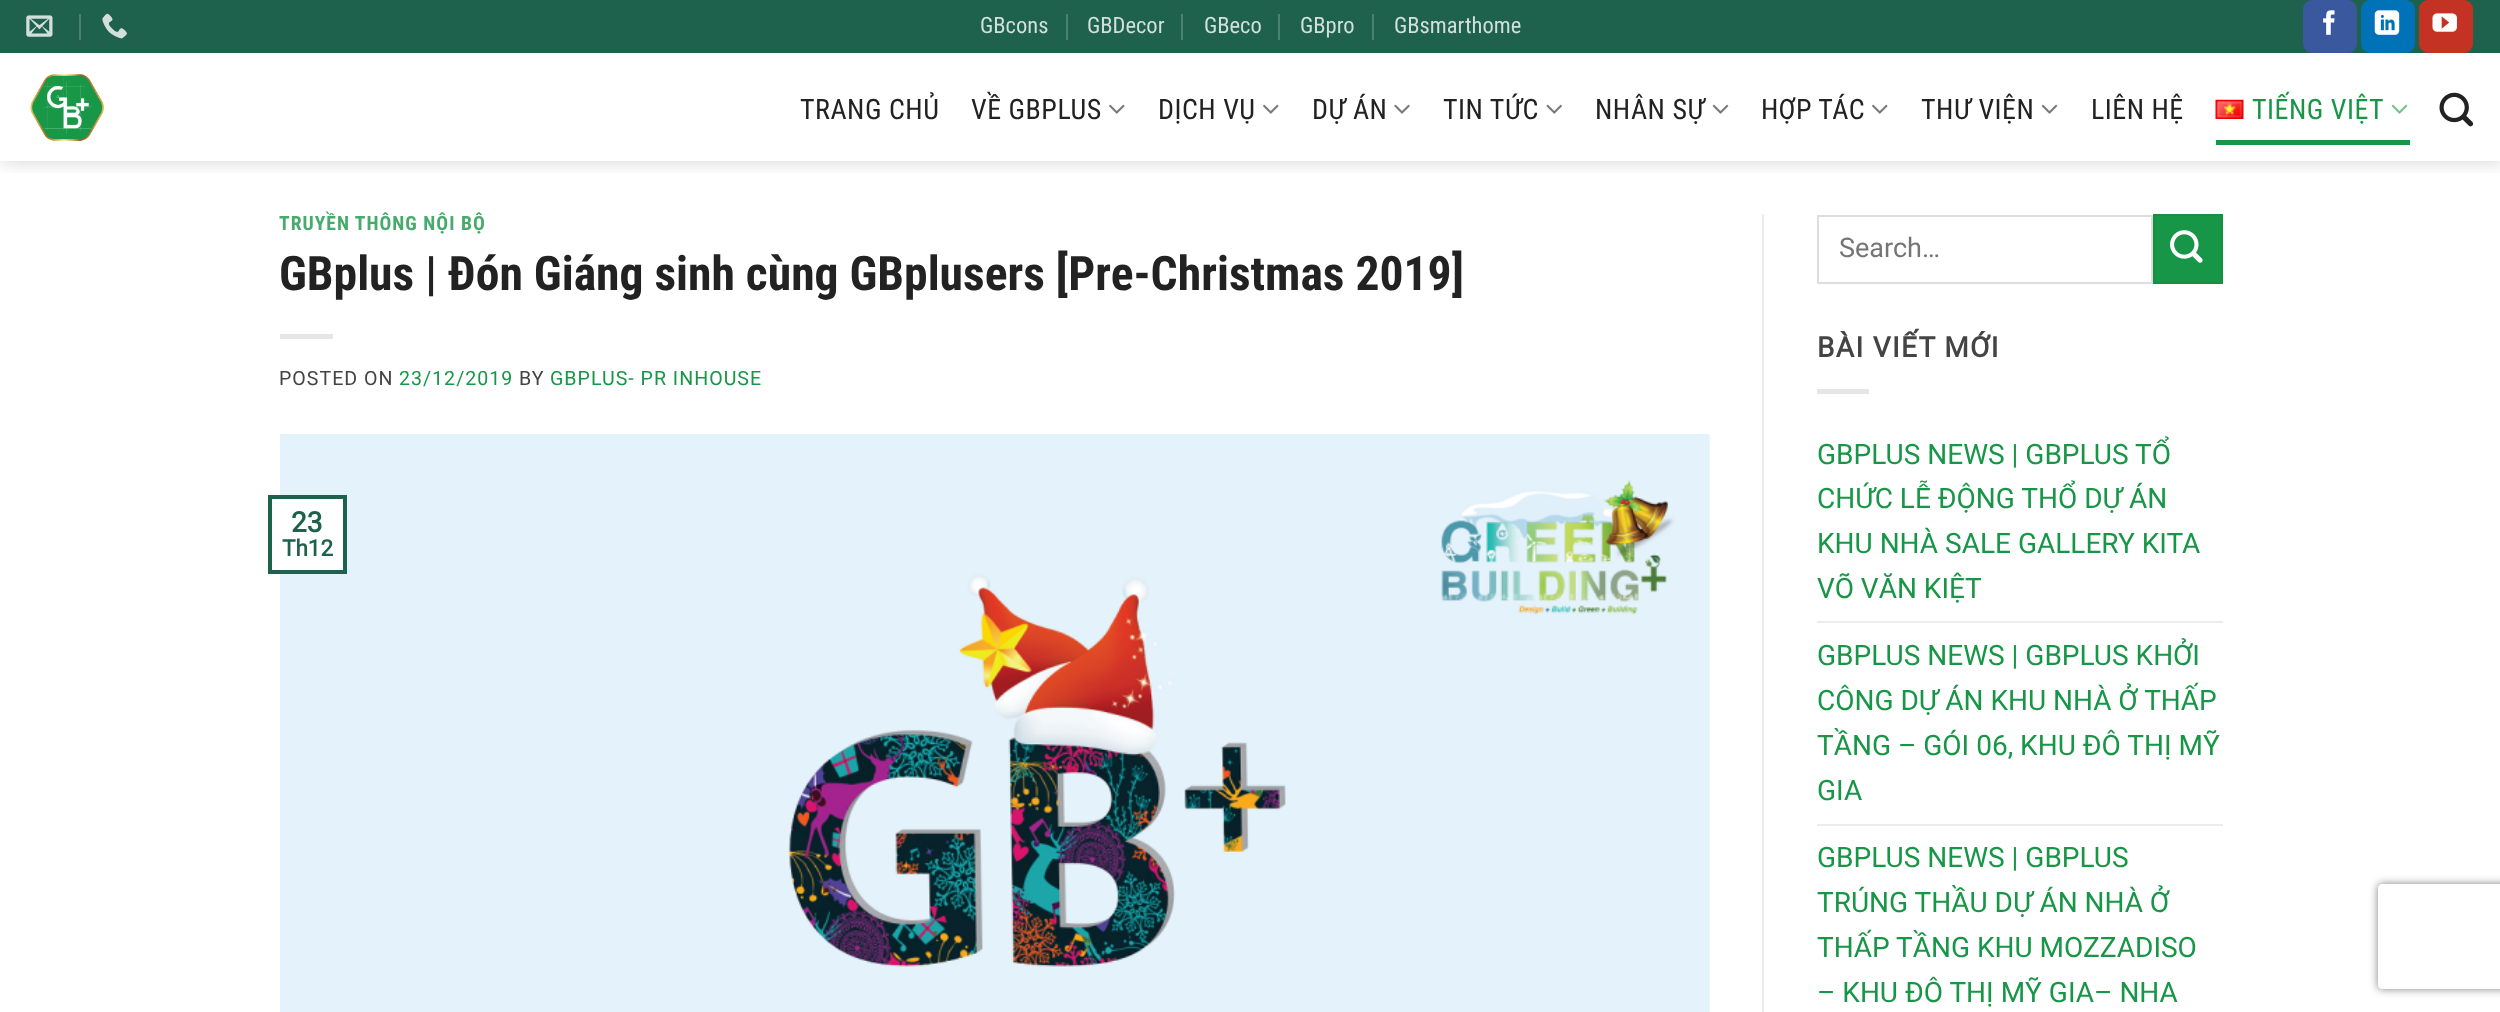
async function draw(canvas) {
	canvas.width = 2500;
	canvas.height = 1012;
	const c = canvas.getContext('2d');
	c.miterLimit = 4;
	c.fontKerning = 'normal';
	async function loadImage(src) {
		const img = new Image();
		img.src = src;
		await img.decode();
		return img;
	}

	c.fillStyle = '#fff';
	c.fillRect(0, 0, 2500, 1012);
	c.save();
	c.beginPath();
	c.rect(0, 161, 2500, 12);
	c.clip();
	c.fillStyle = '#00000026';
	c.filter = 'blur(9px)';
	c.beginPath();
	c.rect(2, 2, 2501, 161);
	c.fill();
	c.filter = 'none';
	c.restore();
	c.fillStyle = '#1e614c';
	c.fillRect(0, 0, 2500, 53);
	c.drawImage(await loadImage('img1.png'), 26, 15, 27, 22);
	c.fillStyle = '#4b8170';
	c.fillRect(79, 14, 2, 26);
	c.drawImage(await loadImage('img2.png'), 102, 13, 25, 26);
	c.font = '22.5px Roboto Condensed';
	c.fillStyle = '#d2dfdb';
	c.fillText('GBcons', 980, 33);
	c.fillStyle = '#4b8170';
	c.fillRect(1066, 14, 2, 26);
	c.fillStyle = '#d2dfdb';
	c.fillText('GBDecor', 1087, 33);
	c.fillStyle = '#4b8170';
	c.fillRect(1181, 14, 2, 26);
	c.fillStyle = '#d2dfdb';
	c.fillText('GBeco', 1204, 33);
	c.fillStyle = '#4b8170';
	c.fillRect(1278, 14, 2, 26);
	c.fillStyle = '#d2dfdb';
	c.fillText('GBpro', 1300, 33);
	c.fillStyle = '#4b8170';
	c.fillRect(1372, 14, 2, 26);
	c.fillStyle = '#d2dfdb';
	c.fillText('GBsmarthome', 1394, 33);
	c.fillStyle = '#3a589d';
	c.beginPath();
	c.roundRect(2304, 1, 52, 51, 8);
	c.fill();
	c.strokeStyle = '#3a589d';
	c.lineWidth = 2;
	c.stroke();
	c.drawImage(await loadImage('img3.png'), 2323, 10, 12, 25);
	c.fillStyle = '#0072b7';
	c.beginPath();
	c.roundRect(2362, 1, 52, 51, 8);
	c.fill();
	c.strokeStyle = '#0072b7';
	c.stroke();
	c.drawImage(await loadImage('img4.png'), 2374, 10, 26, 25);
	c.fillStyle = '#c33223';
	c.beginPath();
	c.roundRect(2420, 1, 52, 51, 8);
	c.fill();
	c.strokeStyle = '#c33223';
	c.stroke();
	c.drawImage(await loadImage('img5.png'), 2432, 13, 25, 19);
	c.drawImage(await loadImage('img6.png'), 30, 74, 74, 68);
	c.letterSpacing = '0.5px';
	c.font = '28px Roboto Condensed';
	c.fillStyle = '#222';
	c.fillText('TRANG CHỦ', 800, 119);
	c.fillText('VỀ GBPLUS', 971, 119);
	c.drawImage(await loadImage('img7.png'), 1109, 104, 16, 10);
	c.fillText('DỊCH VỤ', 1158, 119);
	c.drawImage(await loadImage('img7.png'), 1263, 104, 16, 10);
	c.fillText('DỰ ÁN', 1312, 119);
	c.drawImage(await loadImage('img8.png'), 1394, 104, 16, 10);
	c.fillText('TIN TỨC', 1443, 119);
	c.drawImage(await loadImage('img9.png'), 1546, 104, 16, 10);
	c.fillText('NHÂN SỰ', 1595, 119);
	c.drawImage(await loadImage('img10.png'), 1712, 104, 17, 10);
	c.fillText('HỢP TÁC', 1761, 119);
	c.drawImage(await loadImage('img7.png'), 1872, 104, 16, 10);
	c.fillText('THƯ VIỆN', 1921, 119);
	c.drawImage(await loadImage('img10.png'), 2041, 104, 17, 10);
	c.fillText('LIÊN HỆ', 2091, 119);
	c.drawImage(await loadImage('img11.png'), 2215, 99, 29, 20);
	c.fillStyle = '#189647';
	c.fillText('TIẾNG VIỆT', 2252, 119);
	c.drawImage(await loadImage('img12.png'), 2391, 104, 17, 10);
	c.fillRect(2216, 140, 194, 5);
	c.drawImage(await loadImage('img13.png'), 2439, 92, 35, 35);
	c.letterSpacing = '1px';
	c.font = 'bold 19.6px Roboto Condensed';
	c.fillStyle = '#46ab6c';
	c.fillText('TRUYỀN THÔNG NỘI BỘ', 279, 230);
	c.letterSpacing = '0px';
	c.font = 'bold 47.6px Roboto Condensed';
	c.fillStyle = '#222';
	c.fillText('GBplus | Đón Giáng sinh cùng GBplusers [Pre-Christmas 2019]', 279, 290);
	c.fillStyle = '#e6e6e6';
	c.fillRect(280, 334, 53, 5);
	c.letterSpacing = '1px';
	c.font = '19.6px Roboto';
	c.fillStyle = '#444';
	c.fillText('POSTED ON', 279, 385);
	c.fillStyle = '#189647';
	c.fillText('23/12/2019', 399, 385);
	c.fillStyle = '#444';
	c.fillText('BY', 519, 385);
	c.fillStyle = '#189647';
	c.fillText('GBPLUS- PR INHOUSE', 550, 385);
	c.drawImage(await loadImage('img14.png'), 280, 434, 1430, 578);
	c.fillStyle = '#fff';
	c.fillRect(280, 499, 63, 71);
	c.strokeStyle = '#1e614c';
	c.lineWidth = 4;
	c.strokeRect(270, 497, 75, 75);
	c.letterSpacing = '0px';
	c.font = 'bold 28px Roboto';
	c.fillStyle = '#1e614c';
	c.fillText('23', 291, 532);
	c.font = 'bold 22.5px Roboto';
	c.fillText('Th12', 282, 556);
	c.fillStyle = '#ececec';
	c.fillRect(1762, 214, 2, 798);
	c.strokeStyle = '#ddd';
	c.lineWidth = 2;
	c.strokeRect(1818, 216, 334, 67);
	c.font = '27px Roboto';
	c.fillStyle = '#757575';
	c.fillText('Search…', 1839, 257);
	c.fillStyle = '#189647';
	c.beginPath();
	c.rect(2154, 215, 68, 68);
	c.fill();
	c.strokeStyle = '#178f43';
	c.stroke();
	c.drawImage(await loadImage('img15.png'), 2170, 230, 33, 33);
	c.letterSpacing = '1.4px';
	c.font = 'bold 28px Roboto';
	c.fillStyle = '#444';
	c.fillText('BÀI VIẾT MỚI', 1817, 357);
	c.fillStyle = '#e6e6e6';
	c.fillRect(1817, 389, 52, 5);
	c.letterSpacing = '0px';
	c.font = '28px Roboto';
	c.fillStyle = '#189647';
	for (const [text, x, y] of [
		['GBPLUS NEWS | GBPLUS TỔ', 1817, 464],
		['CHỨC LỄ ĐỘNG THỔ DỰ ÁN', 1817, 508],
		['KHU NHÀ SALE GALLERY KITA', 1817, 553],
		['VÕ VĂN KIỆT', 1817, 598],
	]) {
		c.fillText(text, x, y);
	}
	c.fillStyle = '#ececec';
	c.fillRect(1817, 621, 406, 2);
	c.fillStyle = '#189647';
	for (const [text, x, y] of [
		['GBPLUS NEWS | GBPLUS KHỞI', 1817, 665],
		['CÔNG DỰ ÁN KHU NHÀ Ở THẤP', 1817, 710],
		['TẦNG – GÓI 06, KHU ĐÔ THỊ MỸ', 1817, 755],
		['GIA', 1817, 800],
	]) {
		c.fillText(text, x, y);
	}
	c.fillStyle = '#ececec';
	c.fillRect(1817, 824, 406, 2);
	c.fillStyle = '#189647';
	for (const [text, x, y] of [
		['GBPLUS NEWS | GBPLUS', 1817, 867],
		['TRÚNG THẦU DỰ ÁN NHÀ Ở', 1817, 912],
		['THẤP TẦNG KHU MOZZADISO', 1817, 957],
		['– KHU ĐÔ THỊ MỸ GIA– NHA', 1817, 1002],
	]) {
		c.fillText(text, x, y);
	}
	c.save();
	c.beginPath();
	c.moveTo(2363, 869);
	c.lineTo(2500, 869);
	c.lineTo(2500, 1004);
	c.lineTo(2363, 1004);
	c.closePath();
	c.moveTo(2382, 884);
	c.lineTo(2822, 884);
	c.bezierCurveTo(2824, 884, 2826, 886, 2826, 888);
	c.lineTo(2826, 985);
	c.bezierCurveTo(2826, 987, 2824, 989, 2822, 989);
	c.lineTo(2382, 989);
	c.bezierCurveTo(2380, 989, 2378, 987, 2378, 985);
	c.lineTo(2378, 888);
	c.bezierCurveTo(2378, 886, 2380, 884, 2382, 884);
	c.closePath();
	c.clip('evenodd');
	c.fillStyle = '#808080';
	c.filter = 'blur(4.5px)';
	c.beginPath();
	c.roundRect(2378, 884, 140, 105, 4);
	c.fill();
	c.filter = 'none';
	c.restore();
}

draw(document.querySelector('canvas'));
